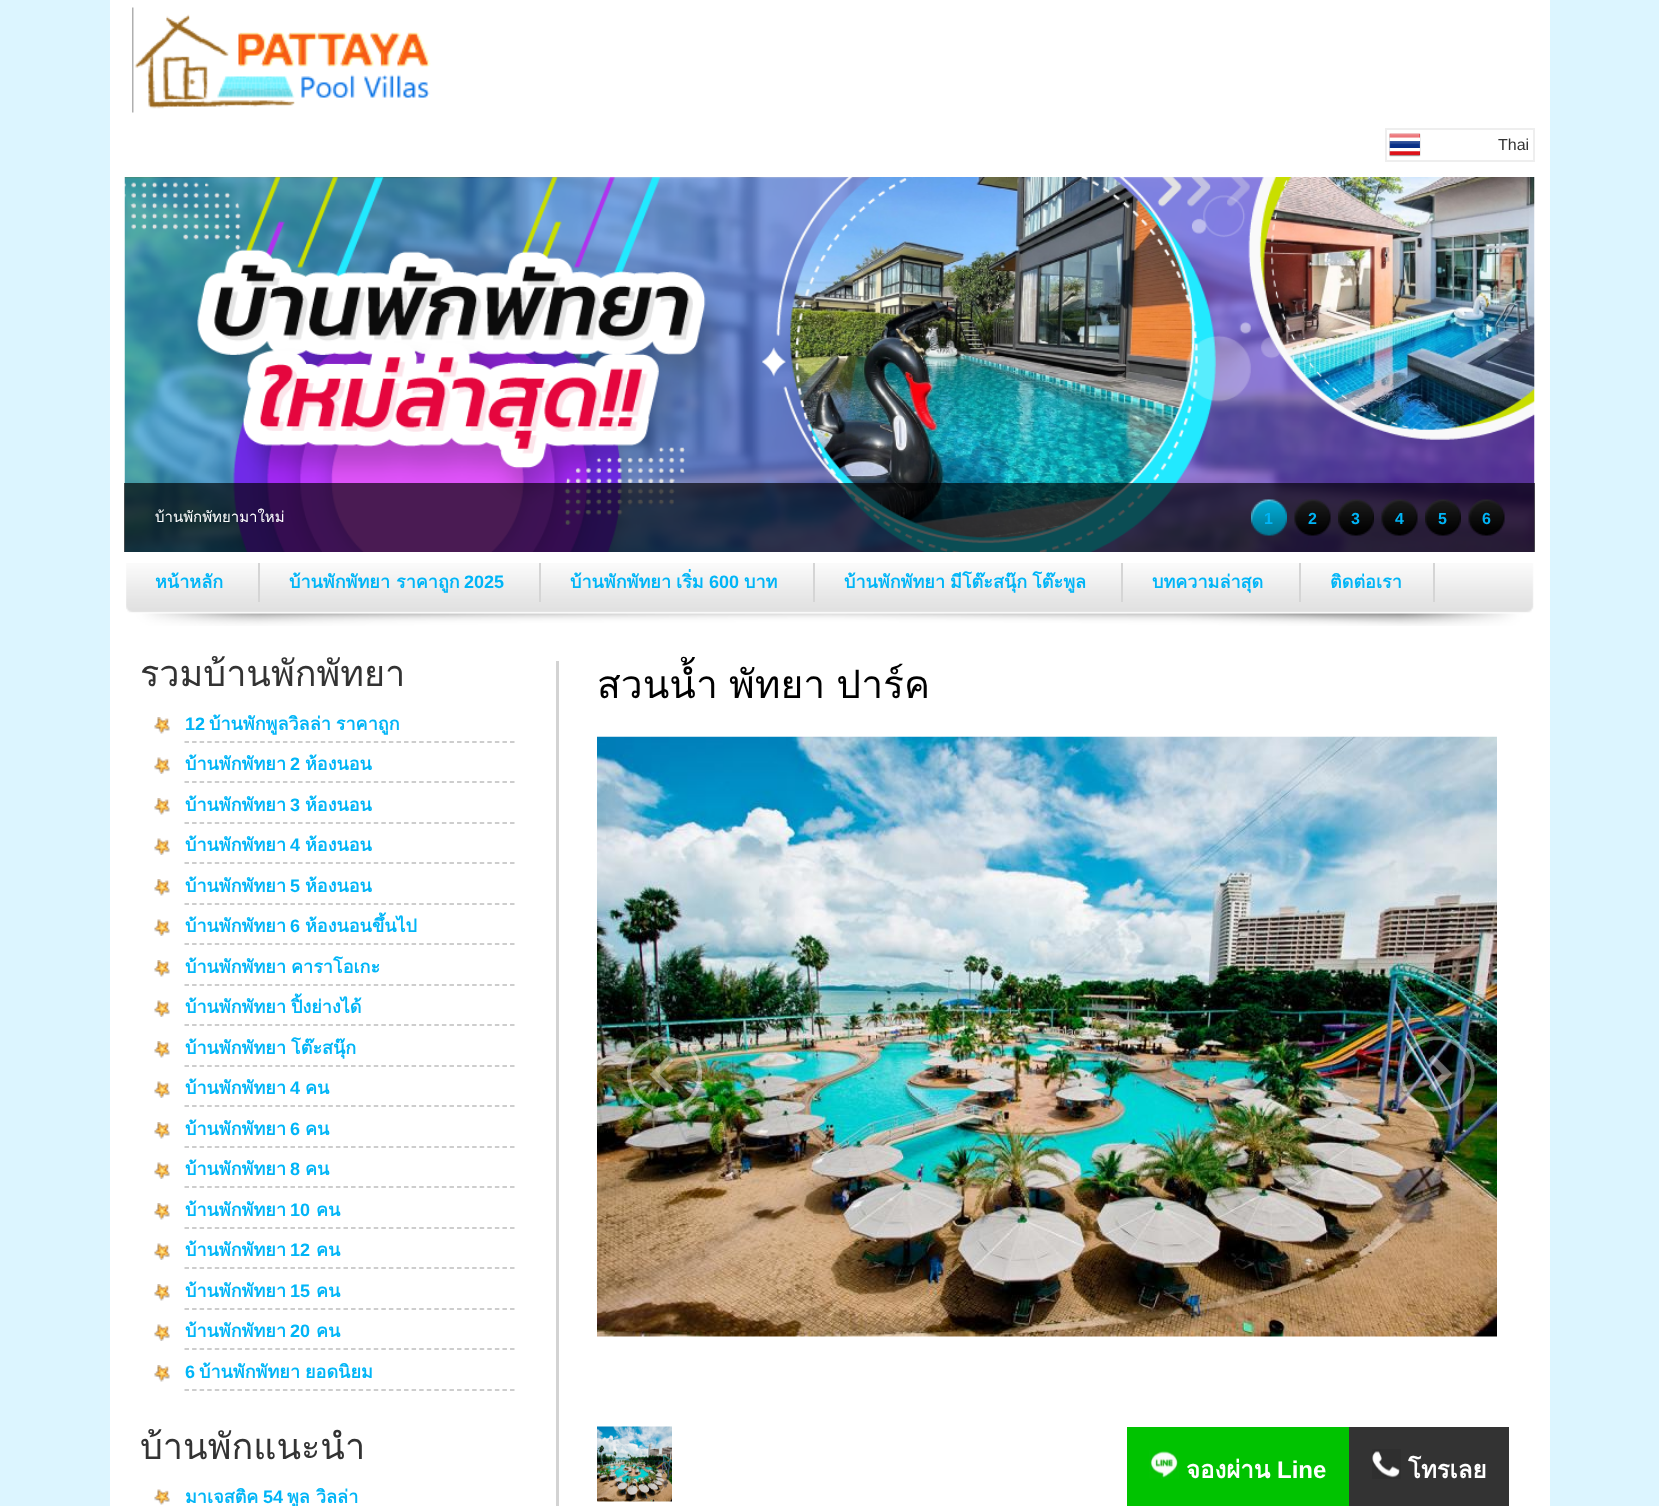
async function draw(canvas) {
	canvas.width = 1659;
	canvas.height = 1506;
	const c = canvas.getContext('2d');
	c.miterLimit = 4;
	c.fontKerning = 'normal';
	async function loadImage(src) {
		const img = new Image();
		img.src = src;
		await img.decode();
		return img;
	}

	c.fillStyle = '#dcf5ff';
	c.fillRect(0, 0, 1659, 1506);
	c.fillStyle = '#fff';
	c.fillRect(110, 0, 1440, 1506);
	c.drawImage(await loadImage('img1.png'), 132, 7, 299, 106);
	c.strokeStyle = '#eee';
	c.lineWidth = 2;
	c.strokeRect(1386, 129, 148, 32);
	c.drawImage(await loadImage('img2.png'), 1389, 133, 32, 24);
	c.font = '16px Liberation Sans';
	c.fillStyle = '#333';
	c.fillText('Thai', 1498, 150);
	c.drawImage(await loadImage('img3.png'), 124, 177, 1411, 375);
	c.fillStyle = '#000000ab';
	c.fillRect(124, 483, 1411, 69);
	c.font = '15px Loma';
	c.fillStyle = '#fff';
	c.fillText('บ้านพักพัทยามาใหม่', 155, 522);
	c.drawImage(await loadImage('img4.png'), 1251, 499, 36, 37);
	c.font = 'bold 16px Liberation Sans';
	c.fillStyle = '#00b5f7';
	c.fillText('1', 1264, 524);
	c.drawImage(await loadImage('img5.png'), 1294, 499, 37, 37);
	c.fillText('2', 1308, 524);
	c.drawImage(await loadImage('img6.png'), 1338, 499, 36, 37);
	c.fillText('3', 1351, 524);
	c.drawImage(await loadImage('img7.png'), 1381, 499, 37, 37);
	c.fillText('4', 1395, 524);
	c.drawImage(await loadImage('img8.png'), 1425, 499, 36, 37);
	c.fillText('5', 1438, 524);
	c.drawImage(await loadImage('img9.png'), 1468, 499, 37, 37);
	c.fillText('6', 1482, 524);
	c.drawImage(await loadImage('img10.png'), 126, 563, 1408, 63);
	c.font = 'bold 18px Loma';
	c.fillText('หน้าหลัก', 155, 588);
	c.fillStyle = '#d5d5d5';
	c.fillRect(258, 563, 2, 39);
	c.fillStyle = '#00b5f7';
	c.fillText('บ้านพักพัทยา ราคาถูก', 289, 588);
	c.font = 'bold 18px Liberation Sans';
	c.fillText('2025', 464, 588);
	c.fillStyle = '#d5d5d5';
	c.fillRect(539, 563, 2, 39);
	c.wordSpacing = '-1px';
	c.font = 'bold 18px Loma';
	c.fillStyle = '#00b5f7';
	c.fillText('บ้านพักพัทยา เริ่ม', 570, 588);
	c.wordSpacing = '0px';
	c.font = 'bold 18px Liberation Sans';
	c.fillText('600', 709, 588);
	c.font = 'bold 18px Loma';
	c.fillText('บาท', 744, 588);
	c.fillStyle = '#d5d5d5';
	c.fillRect(813, 563, 2, 39);
	c.wordSpacing = '-1px';
	c.fillStyle = '#00b5f7';
	c.fillText('บ้านพักพัทยา มีโต๊ะสนุ๊ก โต๊ะพูล', 844, 588);
	c.fillStyle = '#d5d5d5';
	c.fillRect(1121, 563, 2, 39);
	c.wordSpacing = '0px';
	c.fillStyle = '#00b5f7';
	c.fillText('บทความล่าสุด', 1152, 588);
	c.fillStyle = '#d5d5d5';
	c.fillRect(1299, 563, 2, 39);
	c.fillStyle = '#00b5f7';
	c.fillText('ติดต่อเรา', 1330, 588);
	c.fillStyle = '#d5d5d5';
	c.fillRect(1433, 563, 2, 39);
	c.fillStyle = '#d3d3d3';
	c.fillRect(556, 661, 3, 845);
	c.font = '36px Loma';
	c.fillStyle = '#333';
	c.fillText('รวมบ้านพักพัทยา', 140, 686);
	c.drawImage(await loadImage('img11.png'), 154, 717, 16, 17);
	c.beginPath();
	c.moveTo(184.5, 742);
	c.lineTo(514.5, 742);
	c.strokeStyle = '#bdbdbd';
	c.lineWidth = 1.5;
	c.setLineDash([4.5, 3.07]);
	c.stroke();
	c.font = 'bold 18px Liberation Sans';
	c.fillStyle = '#00b5f7';
	c.fillText('12', 185, 730);
	c.wordSpacing = '-1px';
	c.font = 'bold 18px Loma';
	c.fillText('บ้านพักพูลวิลล่า ราคาถูก', 209, 730);
	c.drawImage(await loadImage('img12.png'), 154, 757, 16, 17);
	c.beginPath();
	c.moveTo(184.5, 782);
	c.lineTo(514.5, 782);
	c.stroke();
	c.wordSpacing = '0px';
	c.fillText('บ้านพักพัทยา', 185, 770);
	c.font = 'bold 18px Liberation Sans';
	c.fillText('2', 290, 770);
	c.font = 'bold 18px Loma';
	c.fillText('ห้องนอน', 305, 770);
	c.drawImage(await loadImage('img11.png'), 154, 798, 16, 17);
	c.beginPath();
	c.moveTo(184.5, 823);
	c.lineTo(514.5, 823);
	c.stroke();
	c.fillText('บ้านพักพัทยา', 185, 811);
	c.font = 'bold 18px Liberation Sans';
	c.fillText('3', 290, 811);
	c.font = 'bold 18px Loma';
	c.fillText('ห้องนอน', 305, 811);
	c.drawImage(await loadImage('img12.png'), 154, 838, 16, 17);
	c.beginPath();
	c.moveTo(184.5, 863);
	c.lineTo(514.5, 863);
	c.stroke();
	c.fillText('บ้านพักพัทยา', 185, 851);
	c.font = 'bold 18px Liberation Sans';
	c.fillText('4', 290, 851);
	c.font = 'bold 18px Loma';
	c.fillText('ห้องนอน', 305, 851);
	c.drawImage(await loadImage('img11.png'), 154, 879, 16, 17);
	c.beginPath();
	c.moveTo(184.5, 904);
	c.lineTo(514.5, 904);
	c.stroke();
	c.fillText('บ้านพักพัทยา', 185, 892);
	c.font = 'bold 18px Liberation Sans';
	c.fillText('5', 290, 892);
	c.font = 'bold 18px Loma';
	c.fillText('ห้องนอน', 305, 892);
	c.drawImage(await loadImage('img12.png'), 154, 919, 16, 17);
	c.beginPath();
	c.moveTo(184.5, 944);
	c.lineTo(514.5, 944);
	c.stroke();
	c.fillText('บ้านพักพัทยา', 185, 932);
	c.font = 'bold 18px Liberation Sans';
	c.fillText('6', 290, 932);
	c.font = 'bold 18px Loma';
	c.fillText('ห้องนอนขึ้นไป', 305, 932);
	c.drawImage(await loadImage('img11.png'), 154, 960, 16, 17);
	c.beginPath();
	c.moveTo(184.5, 985);
	c.lineTo(514.5, 985);
	c.stroke();
	c.wordSpacing = '-1px';
	c.fillText('บ้านพักพัทยา คาราโอเกะ', 185, 973);
	c.drawImage(await loadImage('img12.png'), 154, 1000, 16, 17);
	c.beginPath();
	c.moveTo(184.5, 1025);
	c.lineTo(514.5, 1025);
	c.stroke();
	c.fillText('บ้านพักพัทยา ปิ้งย่างได้', 185, 1013);
	c.drawImage(await loadImage('img11.png'), 154, 1041, 16, 17);
	c.beginPath();
	c.moveTo(184.5, 1066);
	c.lineTo(514.5, 1066);
	c.stroke();
	c.fillText('บ้านพักพัทยา โต๊ะสนุ๊ก', 185, 1054);
	c.drawImage(await loadImage('img12.png'), 154, 1081, 16, 17);
	c.beginPath();
	c.moveTo(184.5, 1106);
	c.lineTo(514.5, 1106);
	c.stroke();
	c.wordSpacing = '0px';
	c.fillText('บ้านพักพัทยา', 185, 1094);
	c.font = 'bold 18px Liberation Sans';
	c.fillText('4', 290, 1094);
	c.font = 'bold 18px Loma';
	c.fillText('คน', 305, 1094);
	c.drawImage(await loadImage('img11.png'), 154, 1122, 16, 17);
	c.beginPath();
	c.moveTo(184.5, 1147);
	c.lineTo(514.5, 1147);
	c.stroke();
	c.fillText('บ้านพักพัทยา', 185, 1135);
	c.font = 'bold 18px Liberation Sans';
	c.fillText('6', 290, 1135);
	c.font = 'bold 18px Loma';
	c.fillText('คน', 305, 1135);
	c.drawImage(await loadImage('img12.png'), 154, 1162, 16, 17);
	c.beginPath();
	c.moveTo(184.5, 1187);
	c.lineTo(514.5, 1187);
	c.stroke();
	c.fillText('บ้านพักพัทยา', 185, 1175);
	c.font = 'bold 18px Liberation Sans';
	c.fillText('8', 290, 1175);
	c.font = 'bold 18px Loma';
	c.fillText('คน', 305, 1175);
	c.drawImage(await loadImage('img11.png'), 154, 1203, 16, 17);
	c.beginPath();
	c.moveTo(184.5, 1228);
	c.lineTo(514.5, 1228);
	c.stroke();
	c.fillText('บ้านพักพัทยา', 185, 1216);
	c.font = 'bold 18px Liberation Sans';
	c.fillText('10', 290, 1216);
	c.font = 'bold 18px Loma';
	c.fillText('คน', 316, 1216);
	c.drawImage(await loadImage('img12.png'), 154, 1243, 16, 17);
	c.beginPath();
	c.moveTo(184.5, 1268);
	c.lineTo(514.5, 1268);
	c.stroke();
	c.fillText('บ้านพักพัทยา', 185, 1256);
	c.font = 'bold 18px Liberation Sans';
	c.fillText('12', 290, 1256);
	c.font = 'bold 18px Loma';
	c.fillText('คน', 316, 1256);
	c.drawImage(await loadImage('img11.png'), 154, 1284, 16, 17);
	c.beginPath();
	c.moveTo(184.5, 1309);
	c.lineTo(514.5, 1309);
	c.stroke();
	c.fillText('บ้านพักพัทยา', 185, 1297);
	c.font = 'bold 18px Liberation Sans';
	c.fillText('15', 290, 1297);
	c.font = 'bold 18px Loma';
	c.fillText('คน', 316, 1297);
	c.drawImage(await loadImage('img12.png'), 154, 1324, 16, 17);
	c.beginPath();
	c.moveTo(184.5, 1349);
	c.lineTo(514.5, 1349);
	c.stroke();
	c.fillText('บ้านพักพัทยา', 185, 1337);
	c.font = 'bold 18px Liberation Sans';
	c.fillText('20', 290, 1337);
	c.font = 'bold 18px Loma';
	c.fillText('คน', 316, 1337);
	c.drawImage(await loadImage('img11.png'), 154, 1365, 16, 17);
	c.beginPath();
	c.moveTo(184.5, 1390);
	c.lineTo(514.5, 1390);
	c.stroke();
	c.font = 'bold 18px Liberation Sans';
	c.fillText('6', 185, 1378);
	c.wordSpacing = '-1px';
	c.font = 'bold 18px Loma';
	c.fillText('บ้านพักพัทยา ยอดนิยม', 199, 1378);
	c.wordSpacing = '0px';
	c.font = '36px Loma';
	c.fillStyle = '#333';
	c.fillText('บ้านพักแนะนำ', 140, 1459);
	c.drawImage(await loadImage('img13.png'), 154, 1489, 16, 16);
	c.font = 'bold 18px Loma';
	c.fillStyle = '#00b5f7';
	c.fillText('มาเจสติค', 185, 1503);
	c.font = 'bold 18px Liberation Sans';
	c.fillText('54', 263, 1503);
	c.font = 'bold 18px Loma';
	c.fillText('พูล วิลล่า', 287, 1503);
	c.wordSpacing = '-2px';
	c.font = '39px Loma';
	c.fillStyle = '#000';
	c.fillText('สวนน้ำ พัทยา ปาร์ค', 597, 698);
	c.drawImage(await loadImage('img14.png'), 597, 736, 900, 601);
	c.drawImage(await loadImage('img15.png'), 627, 1036, 75, 76);
	c.drawImage(await loadImage('img16.png'), 1399, 1036, 76, 76);
	c.drawImage(await loadImage('img17.png'), 597, 1426, 75, 76);
	c.fillStyle = '#00c300';
	c.fillRect(1127, 1427, 222, 79);
	c.drawImage(await loadImage('img18.png'), 1149, 1450, 30, 30);
	c.wordSpacing = '0px';
	c.font = 'bold 24px Loma';
	c.fillStyle = '#fff';
	c.fillText('จองผ่าน', 1186, 1478);
	c.font = 'bold 24px Liberation Sans';
	c.fillText('Line', 1277, 1478);
	c.fillStyle = '#333';
	c.fillRect(1349, 1427, 160, 79);
	c.drawImage(await loadImage('img19.png'), 1372, 1449, 29, 30);
	c.font = 'bold 24px Loma';
	c.fillStyle = '#fff';
	c.fillText('โทรเลย', 1408, 1478);
}

draw(document.querySelector('canvas'));
